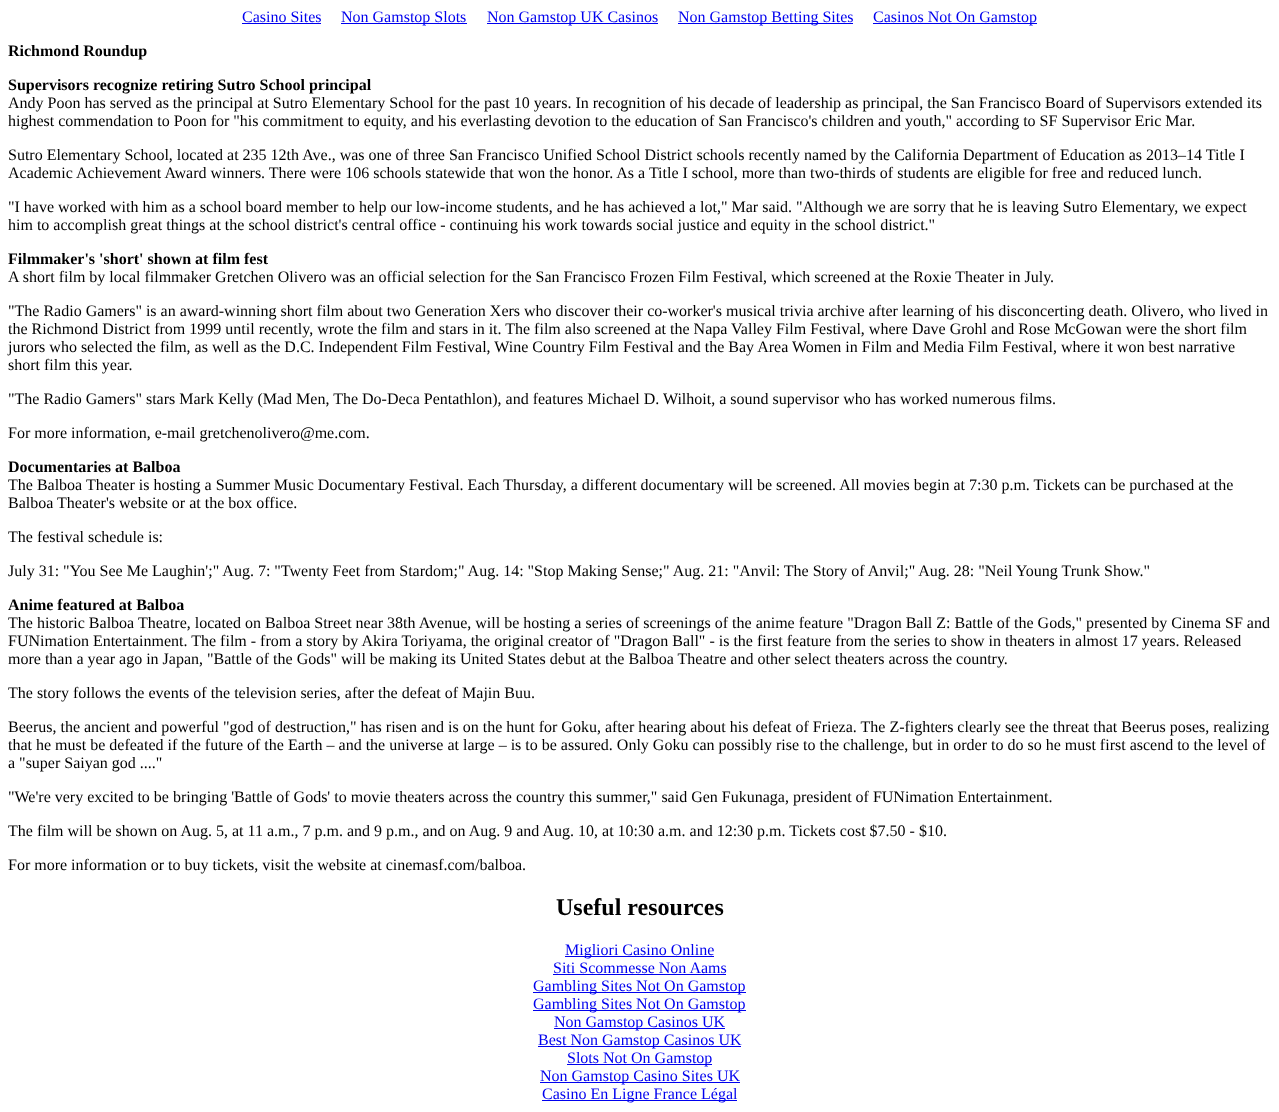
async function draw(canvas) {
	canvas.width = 1279;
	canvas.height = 1112;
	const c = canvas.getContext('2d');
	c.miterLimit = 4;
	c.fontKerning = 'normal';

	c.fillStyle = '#fff';
	c.fillRect(0, 0, 1279, 1112);
	c.font = '16px Liberation Serif';
	c.fillStyle = '#00e';
	c.fillText('Casino Sites', 242, 22);
	c.fillRect(242, 23, 79, 1);
	c.fillRect(341, 23, 126, 1);
	c.fillText('Non Gamstop Slots', 341, 22);
	c.fillRect(487, 23, 171, 1);
	c.fillText('Non Gamstop UK Casinos', 487, 22);
	c.fillRect(678, 23, 175, 1);
	c.fillText('Non Gamstop Betting Sites', 678, 22);
	c.fillRect(873, 23, 164, 1);
	c.fillText('Casinos Not On Gamstop', 873, 22);
	c.font = 'bold 16px Liberation Serif';
	c.fillStyle = '#000';
	c.fillText('Richmond Roundup', 8, 56);
	c.fillText('Supervisors recognize retiring Sutro School principal', 8, 90);
	c.font = '16px Liberation Serif';
	for (const [text, x, y] of [
		['Andy Poon has served as the principal at Sutro Elementary School for the past 10 years. In recognition of his decade of leadership as principal, the San Francisco Board of Supervisors extended its', 8, 108],
		['highest commendation to Poon for "his commitment to equity, and his everlasting devotion to the education of San Francisco\'s children and youth," according to SF Supervisor Eric Mar.', 8, 126],
		['Sutro Elementary School, located at 235 12th Ave., was one of three San Francisco Unified School District schools recently named by the California Department of Education as 2013–14 Title I', 8, 160],
		['Academic Achievement Award winners. There were 106 schools statewide that won the honor. As a Title I school, more than two-thirds of students are eligible for free and reduced lunch.', 8, 178],
		['"I have worked with him as a school board member to help our low-income students, and he has achieved a lot," Mar said. "Although we are sorry that he is leaving Sutro Elementary, we expect', 8, 212],
		['him to accomplish great things at the school district\'s central office - continuing his work towards social justice and equity in the school district."', 8, 230],
	]) {
		c.fillText(text, x, y);
	}
	c.font = 'bold 16px Liberation Serif';
	c.fillText('Filmmaker\'s \'short\' shown at film fest', 8, 264);
	c.font = '16px Liberation Serif';
	for (const [text, x, y] of [
		['A short film by local filmmaker Gretchen Olivero was an official selection for the San Francisco Frozen Film Festival, which screened at the Roxie Theater in July.', 8, 282],
		['"The Radio Gamers" is an award-winning short film about two Generation Xers who discover their co-worker\'s musical trivia archive after learning of his disconcerting death. Olivero, who lived in', 8, 316],
		['the Richmond District from 1999 until recently, wrote the film and stars in it. The film also screened at the Napa Valley Film Festival, where Dave Grohl and Rose McGowan were the short film', 8, 334],
		['jurors who selected the film, as well as the D.C. Independent Film Festival, Wine Country Film Festival and the Bay Area Women in Film and Media Film Festival, where it won best narrative', 8, 352],
		['short film this year.', 8, 370],
		['"The Radio Gamers" stars Mark Kelly (Mad Men, The Do-Deca Pentathlon), and features Michael D. Wilhoit, a sound supervisor who has worked numerous films.', 8, 404],
		['For more information, e-mail gretchenolivero@me.com.', 8, 438],
	]) {
		c.fillText(text, x, y);
	}
	c.font = 'bold 16px Liberation Serif';
	c.fillText('Documentaries at Balboa', 8, 472);
	c.font = '16px Liberation Serif';
	for (const [text, x, y] of [
		['The Balboa Theater is hosting a Summer Music Documentary Festival. Each Thursday, a different documentary will be screened. All movies begin at 7:30 p.m. Tickets can be purchased at the', 8, 490],
		['Balboa Theater\'s website or at the box office.', 8, 508],
		['The festival schedule is:', 8, 542],
		['July 31: "You See Me Laughin\';" Aug. 7: "Twenty Feet from Stardom;" Aug. 14: "Stop Making Sense;" Aug. 21: "Anvil: The Story of Anvil;" Aug. 28: "Neil Young Trunk Show."', 8, 576],
	]) {
		c.fillText(text, x, y);
	}
	c.font = 'bold 16px Liberation Serif';
	c.fillText('Anime featured at Balboa', 8, 610);
	c.font = '16px Liberation Serif';
	for (const [text, x, y] of [
		['The historic Balboa Theatre, located on Balboa Street near 38th Avenue, will be hosting a series of screenings of the anime feature "Dragon Ball Z: Battle of the Gods," presented by Cinema SF and', 8, 628],
		['FUNimation Entertainment. The film - from a story by Akira Toriyama, the original creator of "Dragon Ball" - is the first feature from the series to show in theaters in almost 17 years. Released', 8, 646],
		['more than a year ago in Japan, "Battle of the Gods" will be making its United States debut at the Balboa Theatre and other select theaters across the country.', 8, 664],
		['The story follows the events of the television series, after the defeat of Majin Buu.', 8, 698],
		['Beerus, the ancient and powerful "god of destruction," has risen and is on the hunt for Goku, after hearing about his defeat of Frieza. The Z-fighters clearly see the threat that Beerus poses, realizing', 8, 732],
		['that he must be defeated if the future of the Earth – and the universe at large – is to be assured. Only Goku can possibly rise to the challenge, but in order to do so he must first ascend to the level of', 8, 750],
		['a "super Saiyan god ...."', 8, 768],
		['"We\'re very excited to be bringing \'Battle of Gods\' to movie theaters across the country this summer," said Gen Fukunaga, president of FUNimation Entertainment.', 8, 802],
		['The film will be shown on Aug. 5, at 11 a.m., 7 p.m. and 9 p.m., and on Aug. 9 and Aug. 10, at 10:30 a.m. and 12:30 p.m. Tickets cost $7.50 - $10.', 8, 836],
		['For more information or to buy tickets, visit the website at cinemasf.com/balboa.', 8, 870],
	]) {
		c.fillText(text, x, y);
	}
	c.font = 'bold 24px Liberation Serif';
	c.fillText('Useful resources', 556, 915);
	c.fillStyle = '#00e';
	c.fillRect(565, 956, 149, 1);
	c.font = '16px Liberation Serif';
	c.fillText('Migliori Casino Online', 565, 955);
	c.fillText('Siti Scommesse Non Aams', 553, 973);
	c.fillRect(553, 974, 173, 1);
	c.fillRect(533, 992, 213, 1);
	c.fillText('Gambling Sites Not On Gamstop', 533, 991);
	c.fillRect(533, 1010, 213, 1);
	c.fillText('Gambling Sites Not On Gamstop', 533, 1009);
	c.fillRect(554, 1028, 171, 1);
	c.fillText('Non Gamstop Casinos UK', 554, 1027);
	c.fillRect(538, 1046, 203, 1);
	c.fillText('Best Non Gamstop Casinos UK', 538, 1045);
	c.fillRect(567, 1064, 145, 1);
	c.fillText('Slots Not On Gamstop', 567, 1063);
	c.fillRect(540, 1082, 200, 1);
	c.fillText('Non Gamstop Casino Sites UK', 540, 1081);
	c.fillRect(542, 1100, 195, 1);
	c.fillText('Casino En Ligne France Légal', 542, 1099);
}

draw(document.querySelector('canvas'));
